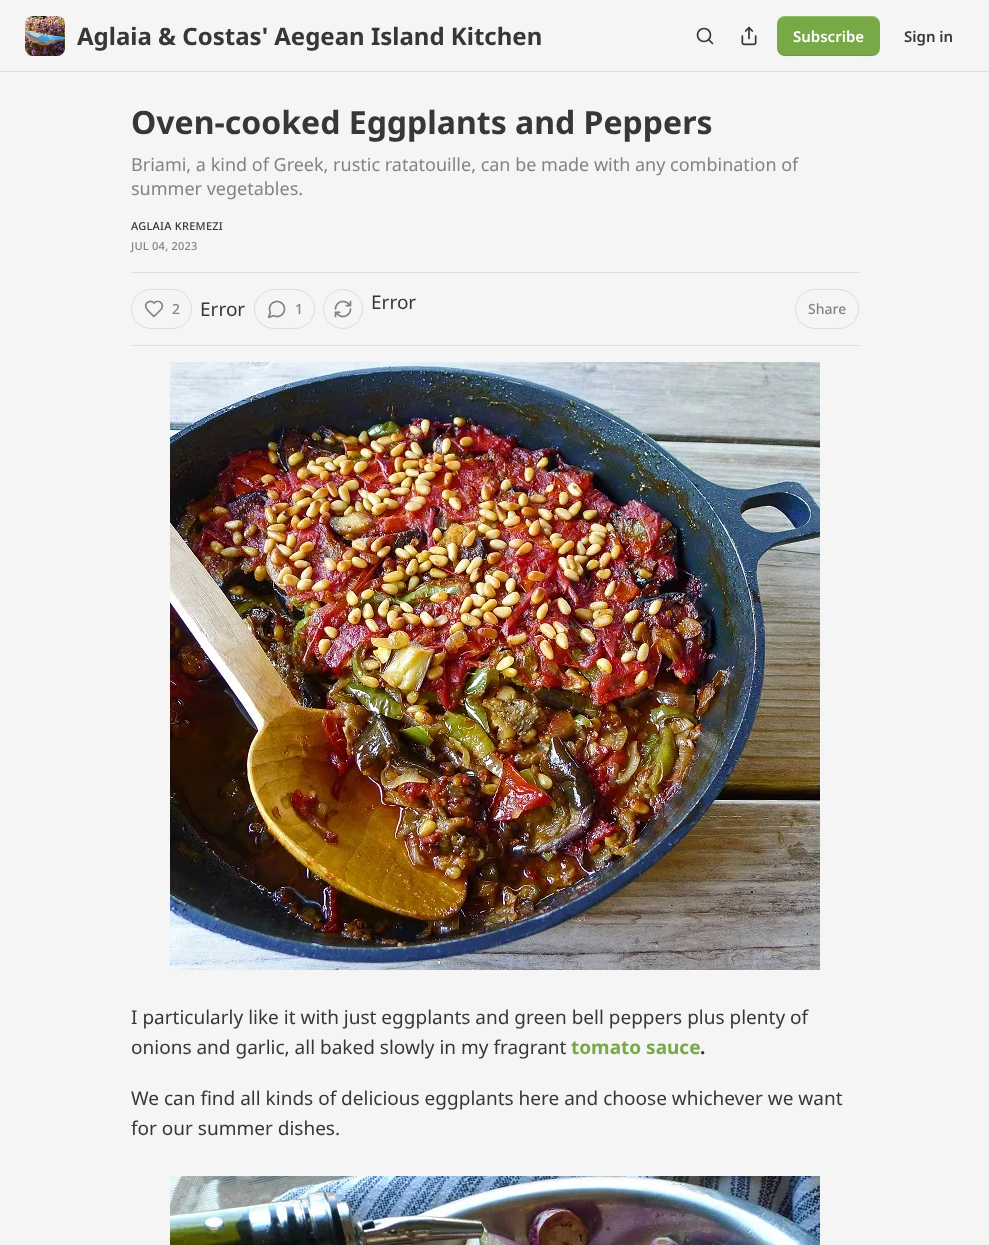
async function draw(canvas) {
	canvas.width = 989;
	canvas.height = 1245;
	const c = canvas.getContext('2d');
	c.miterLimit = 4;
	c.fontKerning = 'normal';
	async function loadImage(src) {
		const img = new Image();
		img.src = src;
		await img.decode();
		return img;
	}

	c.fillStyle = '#f5f5f5';
	c.fillRect(0, 0, 989, 1245);
	c.fillStyle = '#ddd';
	c.fillRect(0, 71, 989, 1);
	c.fillStyle = '#fff';
	c.beginPath();
	c.roundRect(25, 16, 40, 40, 8);
	c.fill();
	c.drawImage(await loadImage('img1.png'), 25, 16, 40, 40);
	c.font = 'bold 24px Noto Sans';
	c.fillStyle = '#363737';
	c.fillText('Aglaia & Costas\' Aegean Island Kitchen', 77, 45);
	c.beginPath();
	c.arc(704, 35, 6.5, 0, 2 * Math.PI);
	c.strokeStyle = '#363737';
	c.lineWidth = 1.7;
	c.stroke();
	c.beginPath();
	c.moveTo(712.5, 43.5);
	c.lineTo(709, 40);
	c.lineCap = 'round';
	c.lineJoin = 'round';
	c.stroke();
	c.drawImage(await loadImage('img2.png'), 741, 26, 16, 20);
	c.fillStyle = '#78a947';
	c.beginPath();
	c.roundRect(777, 16, 103, 40, 8);
	c.fill();
	c.fillStyle = '#0000001a';
	c.beginPath();
	c.moveTo(777, 47);
	c.bezierCurveTo(777, 59, 791, 56, 800, 56);
	c.lineTo(858, 56);
	c.bezierCurveTo(866, 56, 880, 59, 880, 47);
	c.bezierCurveTo(880, 51, 876, 55, 872, 55);
	c.lineTo(785, 55);
	c.bezierCurveTo(781, 55, 777, 51, 777, 47);
	c.closePath();
	c.fill();
	c.fillStyle = '#ffffff33';
	c.beginPath();
	c.moveTo(785, 17);
	c.lineTo(872, 17);
	c.bezierCurveTo(876, 17, 880, 21, 880, 25);
	c.bezierCurveTo(880, 13, 866, 16, 858, 16);
	c.lineTo(800, 16);
	c.bezierCurveTo(791, 16, 777, 13, 777, 25);
	c.bezierCurveTo(777, 21, 781, 17, 785, 17);
	c.closePath();
	c.fill();
	c.font = '600 15px Noto Sans';
	c.fillStyle = '#fff';
	c.fillText('Subscribe', 793, 42);
	c.fillStyle = '#363737';
	c.fillText('Sign in', 904, 42);
	c.font = 'bold 32px Noto Sans';
	c.fillText('Oven-cooked Eggplants and Peppers', 131, 134);
	c.font = '18px Noto Sans';
	c.fillStyle = '#828383';
	c.fillText('Briami, a kind of Greek, rustic ratatouille, can be made with any combination of', 131, 171);
	c.fillText('summer vegetables.', 131, 195);
	c.letterSpacing = '0.25px';
	c.font = '500 11px Noto Sans';
	c.fillStyle = '#363737';
	c.fillText('AGLAIA KREMEZI', 131, 230);
	c.fillStyle = '#828383';
	c.fillText('JUL 04, 2023', 131, 250);
	c.fillStyle = '#ddd';
	c.fillRect(131, 272, 728, 1);
	c.fillRect(131, 345, 728, 1);
	c.beginPath();
	c.roundRect(131.5, 289.5, 60, 39, 19.5);
	c.strokeStyle = '#ddd';
	c.lineWidth = 1;
	c.lineJoin = 'miter';
	c.stroke();
	c.beginPath();
	c.moveTo(160, 310.5);
	c.bezierCurveTo(166, 304.5, 159, 298.5, 154, 303);
	c.bezierCurveTo(150.5, 299.5, 144.5, 302.5, 146, 307.5);
	c.bezierCurveTo(147, 310.5, 152, 314.5, 154, 316.5);
	c.closePath();
	c.strokeStyle = '#828383';
	c.lineWidth = 1.7;
	c.lineJoin = 'round';
	c.stroke();
	c.letterSpacing = '0px';
	c.font = '500 14px Noto Sans';
	c.fillStyle = '#828383';
	c.fillText('2', 172, 314);
	c.font = '19px Noto Sans';
	c.fillStyle = '#363737';
	c.fillText('Error', 200, 316);
	c.beginPath();
	c.roundRect(254.5, 289.5, 60, 39, 19.5);
	c.strokeStyle = '#ddd';
	c.lineWidth = 1;
	c.lineJoin = 'miter';
	c.stroke();
	c.drawImage(await loadImage('img3.png'), 267, 300, 19, 19);
	c.font = '500 14px Noto Sans';
	c.fillStyle = '#828383';
	c.fillText('1', 295, 314);
	c.beginPath();
	c.arc(343, 309, 19.5, 0, 2 * Math.PI);
	c.stroke();
	c.drawImage(await loadImage('img4.png'), 334, 300, 18, 18);
	c.font = '19px Noto Sans';
	c.fillStyle = '#363737';
	c.fillText('Error', 371, 309);
	c.beginPath();
	c.roundRect(795.5, 289.5, 63, 39, 19.5);
	c.stroke();
	c.font = '500 14px Noto Sans';
	c.fillStyle = '#828383';
	c.fillText('Share', 808, 314);
	c.drawImage(await loadImage('img5.png'), 170, 362, 650, 608);
	c.font = '19px Noto Sans';
	c.fillStyle = '#363737';
	c.fillText('I particularly like it with just eggplants and green bell peppers plus plenty of', 131, 1024);
	c.fillText('onions and garlic, all baked slowly in my fragrant', 131, 1054);
	c.font = 'bold 19px Noto Sans';
	c.fillStyle = '#78a947';
	c.fillText('tomato sauce', 571, 1054);
	c.fillStyle = '#363737';
	c.fillText('.', 700, 1054);
	c.font = '19px Noto Sans';
	c.fillText('We can find all kinds of delicious eggplants here and choose whichever we want', 131, 1105);
	c.fillText('for our summer dishes.', 131, 1135);
	c.drawImage(await loadImage('img6.png'), 170, 1176, 650, 69);
}

draw(document.querySelector('canvas'));
